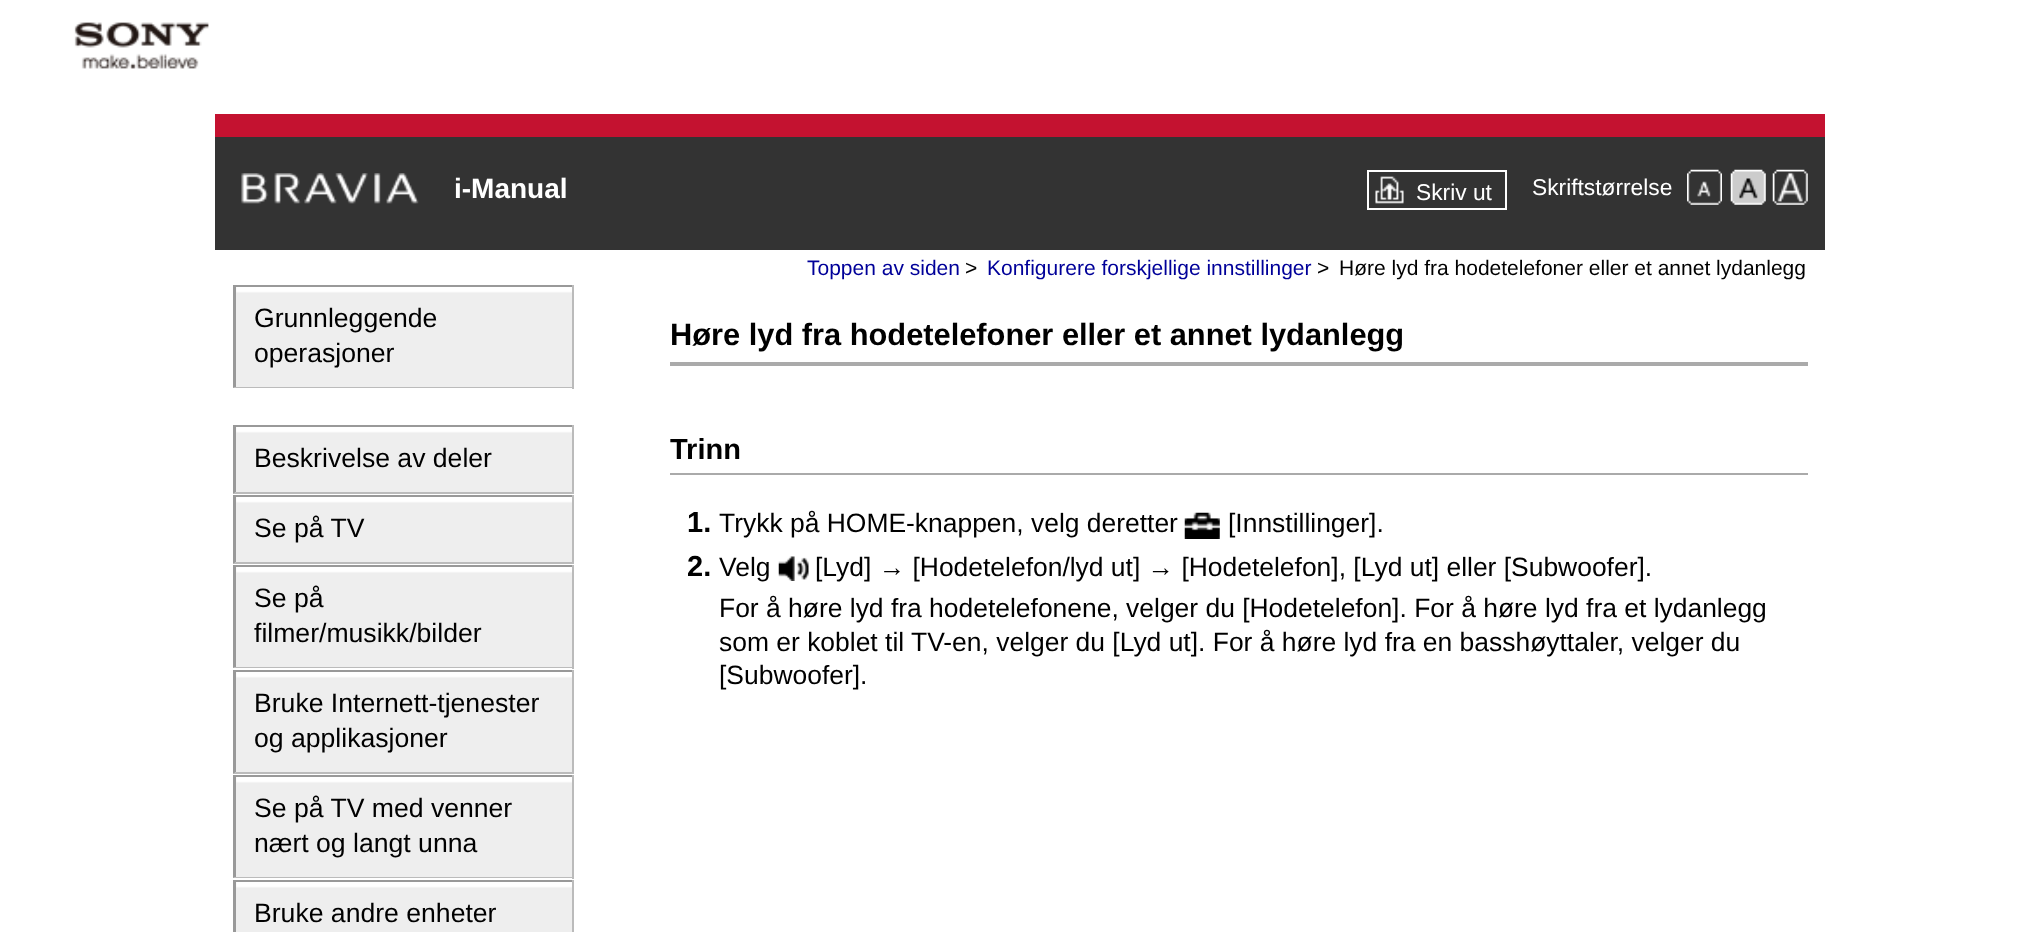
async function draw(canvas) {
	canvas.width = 2040;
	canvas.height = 932;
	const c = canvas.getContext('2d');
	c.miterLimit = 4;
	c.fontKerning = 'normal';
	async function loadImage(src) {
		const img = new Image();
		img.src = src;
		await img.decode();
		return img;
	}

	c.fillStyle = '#fff';
	c.fillRect(0, 0, 2040, 932);
	c.drawImage(await loadImage('img1.png'), 74, 22, 135, 47);
	c.fillStyle = '#333';
	c.fillRect(215, 137, 1610, 113);
	c.fillStyle = '#c41230';
	c.fillRect(215, 114, 1610, 23);
	c.drawImage(await loadImage('img2.png'), 241, 173, 178, 31);
	c.font = 'bold 28px Liberation Sans';
	c.fillStyle = '#fff';
	c.fillText('i-Manual', 454, 198);
	c.drawImage(await loadImage('img3.png'), 1375, 176, 29, 28);
	c.strokeStyle = '#fff';
	c.lineWidth = 2;
	c.strokeRect(1368, 171, 138, 38);
	c.font = '22.75px Liberation Sans';
	c.fillText('Skriv ut', 1416, 200);
	c.fillText('Skriftstørrelse', 1532, 195);
	c.drawImage(await loadImage('img4.png'), 1687, 169, 35, 36);
	c.drawImage(await loadImage('img5.png'), 1730, 169, 36, 36);
	c.drawImage(await loadImage('img6.png'), 1772, 169, 36, 36);
	c.fillStyle = '#eee';
	c.fillRect(236, 287, 336, 100);
	c.drawImage(await loadImage('img7.png'), 236, 287, 336, 7);
	c.fillStyle = '#999';
	c.fillRect(233, 285, 341, 2);
	c.fillStyle = '#bbb';
	c.fillRect(572, 285, 2, 104);
	c.beginPath();
	c.moveTo(574, 388);
	c.lineTo(233, 388);
	c.lineTo(236, 387);
	c.lineTo(572, 387);
	c.closePath();
	c.fill();
	c.fillStyle = '#999';
	c.beginPath();
	c.moveTo(233, 388);
	c.lineTo(233, 285);
	c.lineTo(236, 287);
	c.lineTo(236, 387);
	c.closePath();
	c.fill();
	c.font = '26.6px Liberation Sans';
	c.fillStyle = '#000';
	c.fillText('Grunnleggende', 254, 327);
	c.fillText('operasjoner', 254, 362);
	c.fillStyle = '#eee';
	c.fillRect(236, 427, 336, 65);
	c.drawImage(await loadImage('img7.png'), 236, 427, 336, 7);
	c.fillStyle = '#999';
	c.fillRect(233, 425, 341, 2);
	c.fillStyle = '#bbb';
	c.fillRect(572, 425, 2, 69);
	c.beginPath();
	c.moveTo(574, 494);
	c.lineTo(233, 494);
	c.lineTo(236, 492);
	c.lineTo(572, 492);
	c.closePath();
	c.fill();
	c.fillStyle = '#999';
	c.beginPath();
	c.moveTo(233, 494);
	c.lineTo(233, 425);
	c.lineTo(236, 427);
	c.lineTo(236, 492);
	c.closePath();
	c.fill();
	c.fillStyle = '#000';
	c.fillText('Beskrivelse av deler', 254, 467);
	c.fillStyle = '#eee';
	c.fillRect(236, 497, 336, 65);
	c.drawImage(await loadImage('img7.png'), 236, 497, 336, 7);
	c.fillStyle = '#999';
	c.fillRect(233, 495, 341, 2);
	c.fillStyle = '#bbb';
	c.fillRect(572, 495, 2, 69);
	c.beginPath();
	c.moveTo(574, 564);
	c.lineTo(233, 564);
	c.lineTo(236, 562);
	c.lineTo(572, 562);
	c.closePath();
	c.fill();
	c.fillStyle = '#999';
	c.beginPath();
	c.moveTo(233, 564);
	c.lineTo(233, 495);
	c.lineTo(236, 497);
	c.lineTo(236, 562);
	c.closePath();
	c.fill();
	c.fillStyle = '#000';
	c.fillText('Se på TV', 254, 537);
	c.fillStyle = '#eee';
	c.fillRect(236, 567, 336, 100);
	c.drawImage(await loadImage('img7.png'), 236, 567, 336, 7);
	c.fillStyle = '#999';
	c.fillRect(233, 565, 341, 2);
	c.fillStyle = '#bbb';
	c.fillRect(572, 565, 2, 104);
	c.beginPath();
	c.moveTo(574, 668);
	c.lineTo(233, 668);
	c.lineTo(236, 667);
	c.lineTo(572, 667);
	c.closePath();
	c.fill();
	c.fillStyle = '#999';
	c.beginPath();
	c.moveTo(233, 668);
	c.lineTo(233, 565);
	c.lineTo(236, 567);
	c.lineTo(236, 667);
	c.closePath();
	c.fill();
	c.fillStyle = '#000';
	c.fillText('Se på', 254, 607);
	c.fillText('filmer/musikk/bilder', 254, 642);
	c.fillStyle = '#eee';
	c.fillRect(236, 672, 336, 100);
	c.drawImage(await loadImage('img7.png'), 236, 672, 336, 7);
	c.fillStyle = '#999';
	c.fillRect(233, 670, 341, 2);
	c.fillStyle = '#bbb';
	c.fillRect(572, 670, 2, 104);
	c.beginPath();
	c.moveTo(574, 774);
	c.lineTo(233, 774);
	c.lineTo(236, 772);
	c.lineTo(572, 772);
	c.closePath();
	c.fill();
	c.fillStyle = '#999';
	c.beginPath();
	c.moveTo(233, 774);
	c.lineTo(233, 670);
	c.lineTo(236, 672);
	c.lineTo(236, 772);
	c.closePath();
	c.fill();
	c.fillStyle = '#000';
	c.fillText('Bruke Internett-tjenester', 254, 712);
	c.fillText('og applikasjoner', 254, 747);
	c.fillStyle = '#eee';
	c.fillRect(236, 777, 336, 100);
	c.drawImage(await loadImage('img7.png'), 236, 777, 336, 7);
	c.fillStyle = '#999';
	c.fillRect(233, 775, 341, 2);
	c.fillStyle = '#bbb';
	c.fillRect(572, 775, 2, 104);
	c.beginPath();
	c.moveTo(574, 878);
	c.lineTo(233, 878);
	c.lineTo(236, 877);
	c.lineTo(572, 877);
	c.closePath();
	c.fill();
	c.fillStyle = '#999';
	c.beginPath();
	c.moveTo(233, 878);
	c.lineTo(233, 775);
	c.lineTo(236, 777);
	c.lineTo(236, 877);
	c.closePath();
	c.fill();
	c.fillStyle = '#000';
	c.fillText('Se på TV med venner', 254, 817);
	c.fillText('nært og langt unna', 254, 852);
	c.fillStyle = '#eee';
	c.fillRect(236, 882, 336, 50);
	c.drawImage(await loadImage('img7.png'), 236, 882, 336, 7);
	c.fillStyle = '#999';
	c.fillRect(233, 880, 341, 2);
	c.fillStyle = '#bbb';
	c.fillRect(572, 880, 2, 52);
	c.fillStyle = '#999';
	c.beginPath();
	c.moveTo(233, 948);
	c.lineTo(233, 880);
	c.lineTo(236, 882);
	c.lineTo(236, 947);
	c.closePath();
	c.fill();
	c.fillStyle = '#000';
	c.fillText('Bruke andre enheter', 254, 922);
	c.font = '21px Liberation Sans';
	c.fillStyle = '#009';
	c.fillText('Toppen av siden', 807, 275);
	c.fillStyle = '#000';
	c.fillText('>', 965, 275);
	c.fillStyle = '#009';
	c.fillText('Konfigurere forskjellige innstillinger', 987, 275);
	c.fillStyle = '#000';
	c.fillText('>', 1317, 275);
	c.fillText('Høre lyd fra hodetelefoner eller et annet lydanlegg', 1339, 275);
	c.fillStyle = '#aaa';
	c.fillRect(670, 362, 1138, 4);
	c.font = 'bold 30.8px Liberation Sans';
	c.fillStyle = '#000';
	c.fillText('Høre lyd fra hodetelefoner eller et annet lydanlegg', 670, 345);
	c.fillStyle = '#aaa';
	c.fillRect(670, 473, 1138, 2);
	c.font = 'bold 29px Liberation Sans';
	c.fillStyle = '#000';
	c.fillText('Trinn', 670, 459);
	c.fillText('1.', 687, 532);
	c.font = '26.45px Liberation Sans';
	c.fillText('Trykk på HOME-knappen, velg deretter', 719, 532);
	c.drawImage(await loadImage('img8.png'), 1184, 512, 36, 27);
	c.fillText('[Innstillinger].', 1228, 532);
	c.font = 'bold 29px Liberation Sans';
	c.fillText('2.', 687, 576);
	c.font = '26.45px Liberation Sans';
	c.fillText('Velg', 719, 576);
	c.drawImage(await loadImage('img9.png'), 778, 556, 31, 25);
	for (const [text, x, y] of [
		['[Lyd] → [Hodetelefon/lyd ut] → [Hodetelefon], [Lyd ut] eller [Subwoofer].', 815, 576],
		['For å høre lyd fra hodetelefonene, velger du [Hodetelefon]. For å høre lyd fra et lydanlegg', 719, 617],
		['som er koblet til TV-en, velger du [Lyd ut]. For å høre lyd fra en basshøyttaler, velger du', 719, 651],
		['[Subwoofer].', 719, 684],
	]) {
		c.fillText(text, x, y);
	}
}

draw(document.querySelector('canvas'));
